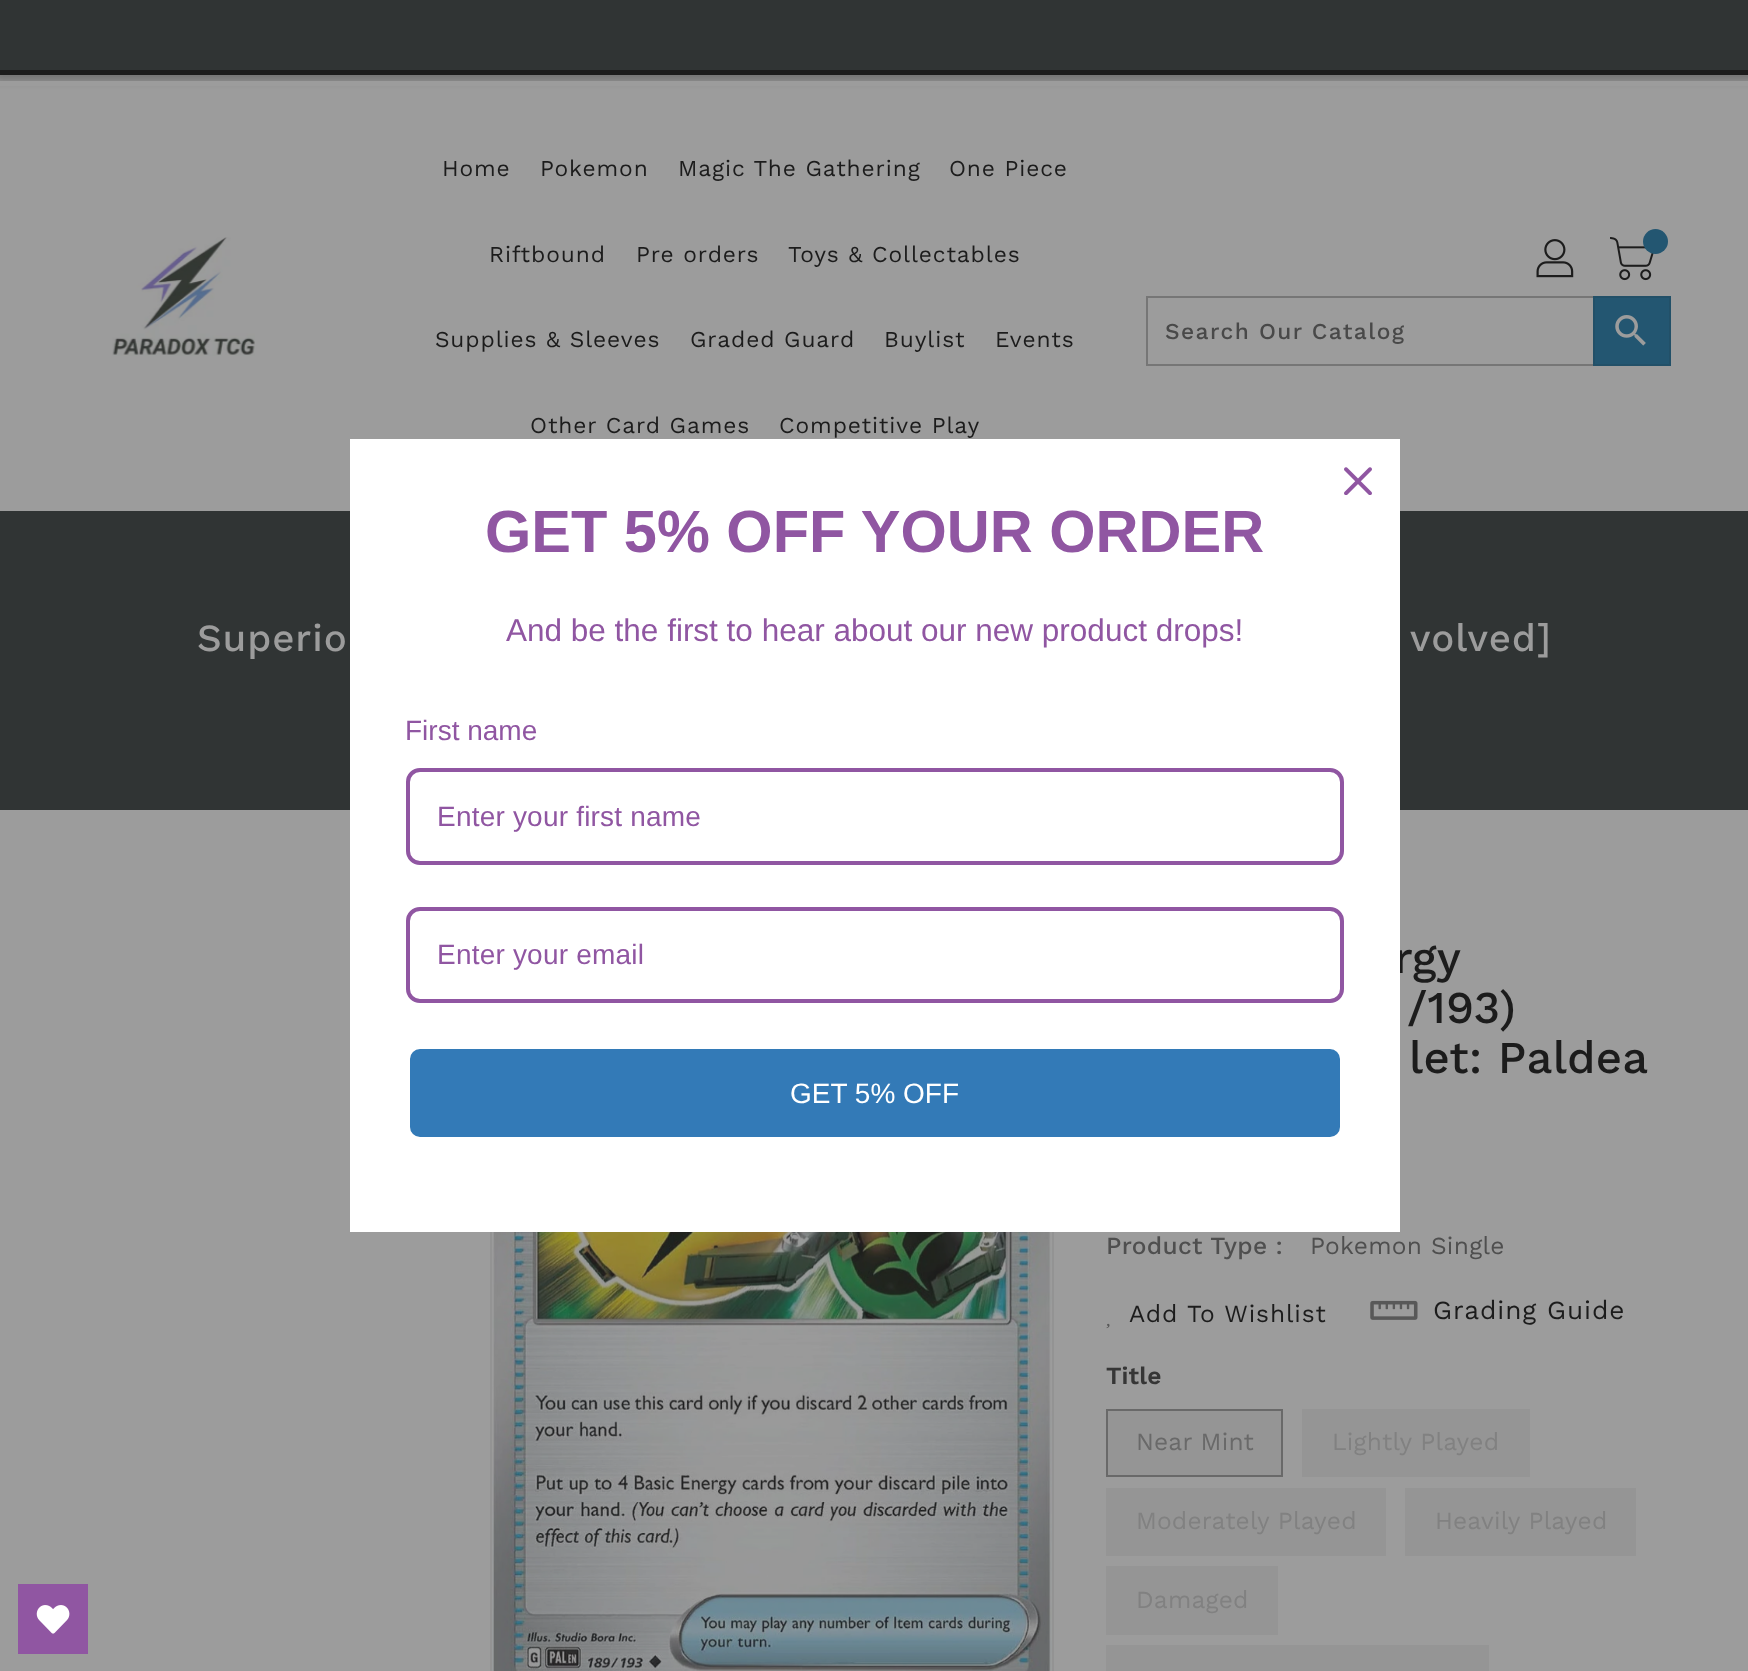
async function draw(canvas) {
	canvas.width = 1748;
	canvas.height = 1671;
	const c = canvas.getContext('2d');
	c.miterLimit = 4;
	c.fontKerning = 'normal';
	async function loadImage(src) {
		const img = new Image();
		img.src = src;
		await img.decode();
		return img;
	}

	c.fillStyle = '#9c9c9c';
	c.fillRect(0, 0, 1748, 1671);
	c.fillStyle = '#1c1c1c4d';
	c.filter = 'blur(3.5px)';
	c.beginPath();
	c.rect(-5, -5, 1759, 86);
	c.fill();
	c.filter = 'none';
	for (const [x, y, w, h, color] of [
		[0, 0, 1748, 70, '#303434'],
		[0, 70, 1748, 5, '#1c1c1c'],
		[0, 81, 1748, 5, '#9c9c9c'],
	]) {
		c.fillStyle = color;
		c.fillRect(x, y, w, h);
	}
	c.drawImage(await loadImage('img1.png'), 112, 237, 143, 119);
	c.letterSpacing = '0.9px';
	c.font = '22.75px Work Sans';
	c.fillStyle = '#1c1c1c';
	for (const [text, x, y] of [
		['Home', 442, 176],
		['Pokemon', 540, 176],
		['Magic The Gathering', 678, 176],
		['One Piece', 949, 176],
		['Riftbound', 489, 262],
		['Pre orders', 636, 262],
		['Toys & Collectables', 788, 262],
		['Supplies & Sleeves', 435, 347],
		['Graded Guard', 690, 347],
		['Buylist', 884, 347],
		['Events', 995, 347],
		['Other Card Games', 530, 433],
		['Competitive Play', 779, 433],
	]) {
		c.fillText(text, x, y);
	}
	c.drawImage(await loadImage('img2.png'), 1536, 239, 38, 39);
	c.drawImage(await loadImage('img3.png'), 1610, 237, 44, 44);
	c.fillStyle = '#235671';
	c.beginPath();
	c.arc(1655.5, 241.5, 12.5, 0, 2 * Math.PI);
	c.fill();
	c.strokeStyle = '#767676';
	c.lineWidth = 2;
	c.strokeRect(1147, 297, 523, 68);
	c.letterSpacing = '1.4px';
	c.font = '500 22.75px Work Sans';
	c.fillStyle = '#494949';
	c.fillText('Search Our Catalog', 1165, 339);
	c.fillStyle = '#235671';
	c.beginPath();
	c.rect(1594, 297, 76, 68);
	c.fill();
	c.strokeStyle = '#225068';
	c.stroke();
	c.drawImage(await loadImage('img4.png'), 1615, 315, 31, 31);
	c.fillStyle = '#303434';
	c.fillRect(0, 511, 1748, 299);
	c.letterSpacing = '0.9px';
	c.font = '500 38.5px Work Sans';
	c.fillStyle = '#9c9c9c';
	c.fillText('Superio', 197, 651);
	c.fillText('volved]', 1410, 651);
	c.strokeStyle = '#939393';
	c.strokeRect(491, 916, 562, 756);
	c.drawImage(await loadImage('img5.png'), 492, 1232, 560, 439);
	c.letterSpacing = '0.2px';
	c.wordSpacing = '-1px';
	c.font = '500 45.5px Work Sans';
	c.fillStyle = '#1c1c1c';
	c.fillText('rgy', 1394, 973);
	c.wordSpacing = '0px';
	c.fillText('/193)', 1407, 1023);
	c.fillText('let: Paldea', 1409, 1073);
	c.letterSpacing = '0.3px';
	c.font = '500 24.5px Work Sans';
	c.fillStyle = '#4f4f4f';
	c.fillText('Product Type :', 1106, 1254);
	c.font = '24.5px Work Sans';
	c.fillText('Pokemon Single', 1310, 1254);
	c.letterSpacing = '0.9px';
	c.fillStyle = '#1c1c1c';
	c.fillText('Add To Wishlist', 1129, 1322);
	c.drawImage(await loadImage('img6.png'), 1106, 1323, 4, 6);
	c.drawImage(await loadImage('img7.png'), 1370, 1300, 48, 20);
	c.font = '26.25px Work Sans';
	c.fillText('Grading Guide', 1433, 1319);
	c.letterSpacing = '0.2px';
	c.font = '600 24.5px Work Sans';
	c.fillStyle = '#363636';
	c.fillText('Title', 1106, 1384);
	c.fillStyle = '#959595';
	c.beginPath();
	c.rect(1107, 1410, 175, 66);
	c.fill();
	c.strokeStyle = '#696969';
	c.stroke();
	c.font = '24.5px Work Sans';
	c.fillStyle = '#696969';
	c.fillText('Near Mint', 1136, 1450);
	c.fillStyle = '#959595';
	c.fillRect(1302, 1409, 228, 68);
	c.fillStyle = '#818181';
	c.fillText('Lightly Played', 1332, 1450);
	c.fillStyle = '#959595';
	c.fillRect(1106, 1488, 280, 68);
	c.fillStyle = '#818181';
	c.fillText('Moderately Played', 1136, 1529);
	c.fillStyle = '#959595';
	c.fillRect(1405, 1488, 231, 68);
	c.fillStyle = '#818181';
	c.fillText('Heavily Played', 1435, 1529);
	c.fillStyle = '#959595';
	c.fillRect(1106, 1566, 172, 69);
	c.fillStyle = '#818181';
	c.fillText('Damaged', 1136, 1608);
	c.fillStyle = '#959595';
	c.fillRect(1106, 1645, 383, 26);
	c.fillStyle = '#fff';
	c.fillRect(350, 439, 1050, 793);
	c.drawImage(await loadImage('img8.png'), 1344, 467, 28, 28);
	c.letterSpacing = '0px';
	c.font = 'bold 59.5px Liberation Sans';
	c.fillStyle = '#9056a2';
	c.fillText('GET 5% OFF YOUR ORDER', 485, 552);
	c.font = '31.5px Liberation Sans';
	c.fillText('And be the first to hear about our new product drops!', 506, 641);
	c.font = '28px Liberation Sans';
	c.fillText('First name', 405, 740);
	c.beginPath();
	c.roundRect(408, 770, 934, 93, 12);
	c.strokeStyle = '#9056a2';
	c.lineWidth = 4;
	c.stroke();
	c.letterSpacing = '0.2px';
	c.fillText('Enter your first name', 437, 826);
	c.beginPath();
	c.roundRect(408, 909, 934, 92, 12);
	c.stroke();
	c.fillText('Enter your email', 437, 964);
	c.fillStyle = '#337ab7';
	c.beginPath();
	c.roundRect(408, 1047, 934, 92, 12);
	c.fill();
	c.strokeStyle = '#fff';
	c.stroke();
	c.letterSpacing = '0px';
	c.fillStyle = '#fff';
	c.fillText('GET 5% OFF', 790, 1103);
	c.fillStyle = '#9056a2';
	c.fillRect(18, 1584, 70, 70);
	c.drawImage(await loadImage('img9.png'), 36, 1605, 34, 29);
}

draw(document.querySelector('canvas'));
